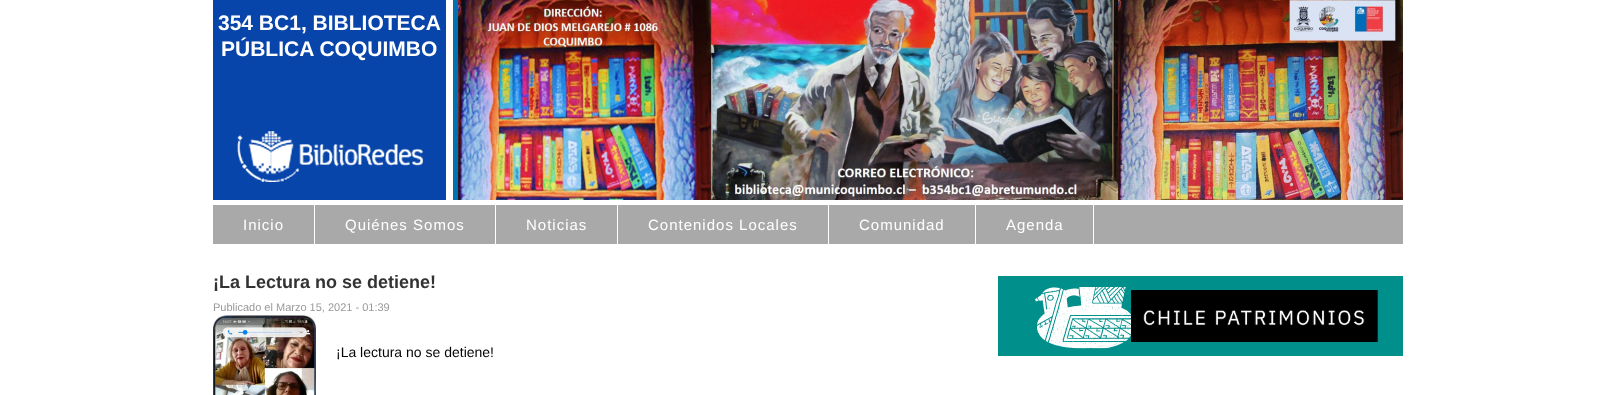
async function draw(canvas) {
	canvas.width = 1616;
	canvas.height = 395;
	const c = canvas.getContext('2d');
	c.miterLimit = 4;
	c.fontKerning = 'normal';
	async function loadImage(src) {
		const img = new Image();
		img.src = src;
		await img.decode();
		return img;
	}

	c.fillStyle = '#fff';
	c.fillRect(0, 0, 1616, 395);
	c.fillStyle = '#0845aa';
	c.fillRect(213, 0, 233, 200);
	c.font = 'bold 21px Liberation Sans';
	c.fillStyle = '#fff';
	c.fillText('354 BC1, BIBLIOTECA', 218, 30);
	c.fillText('PÚBLICA COQUIMBO', 221, 56);
	c.drawImage(await loadImage('img1.png'), 237, 131, 186, 51);
	c.drawImage(await loadImage('img2.png'), 453, 0, 950, 200);
	c.fillStyle = '#a9a9a9';
	c.fillRect(213, 205, 1190, 39);
	c.fillStyle = '#fff';
	c.fillRect(314, 205, 1, 39);
	c.letterSpacing = '1px';
	c.font = '15px Liberation Sans';
	c.fillText('Inicio', 243, 230);
	c.fillRect(495, 205, 1, 39);
	c.fillText('Quiénes Somos', 345, 230);
	c.fillRect(617, 205, 1, 39);
	c.fillText('Noticias', 526, 230);
	c.fillRect(828, 205, 1, 39);
	c.fillText('Contenidos Locales', 648, 230);
	c.fillRect(975, 205, 1, 39);
	c.fillText('Comunidad', 859, 230);
	c.fillRect(1093, 205, 1, 39);
	c.fillText('Agenda', 1006, 230);
	c.letterSpacing = '0px';
	c.font = 'bold 18px Liberation Sans';
	c.fillStyle = '#333';
	c.fillText('¡La Lectura no se detiene!', 213, 288);
	c.font = '11px Liberation Sans';
	c.fillStyle = '#999';
	c.fillText('Publicado el Marzo 15, 2021 - 01:39', 213, 311);
	c.drawImage(await loadImage('img3.png'), 213, 315, 103, 80);
	c.font = '14px Liberation Sans';
	c.fillStyle = '#050505';
	c.fillText('¡La lectura no se detiene!', 336, 357);
	c.drawImage(await loadImage('img4.png'), 998, 276, 405, 80);
}

draw(document.querySelector('canvas'));
